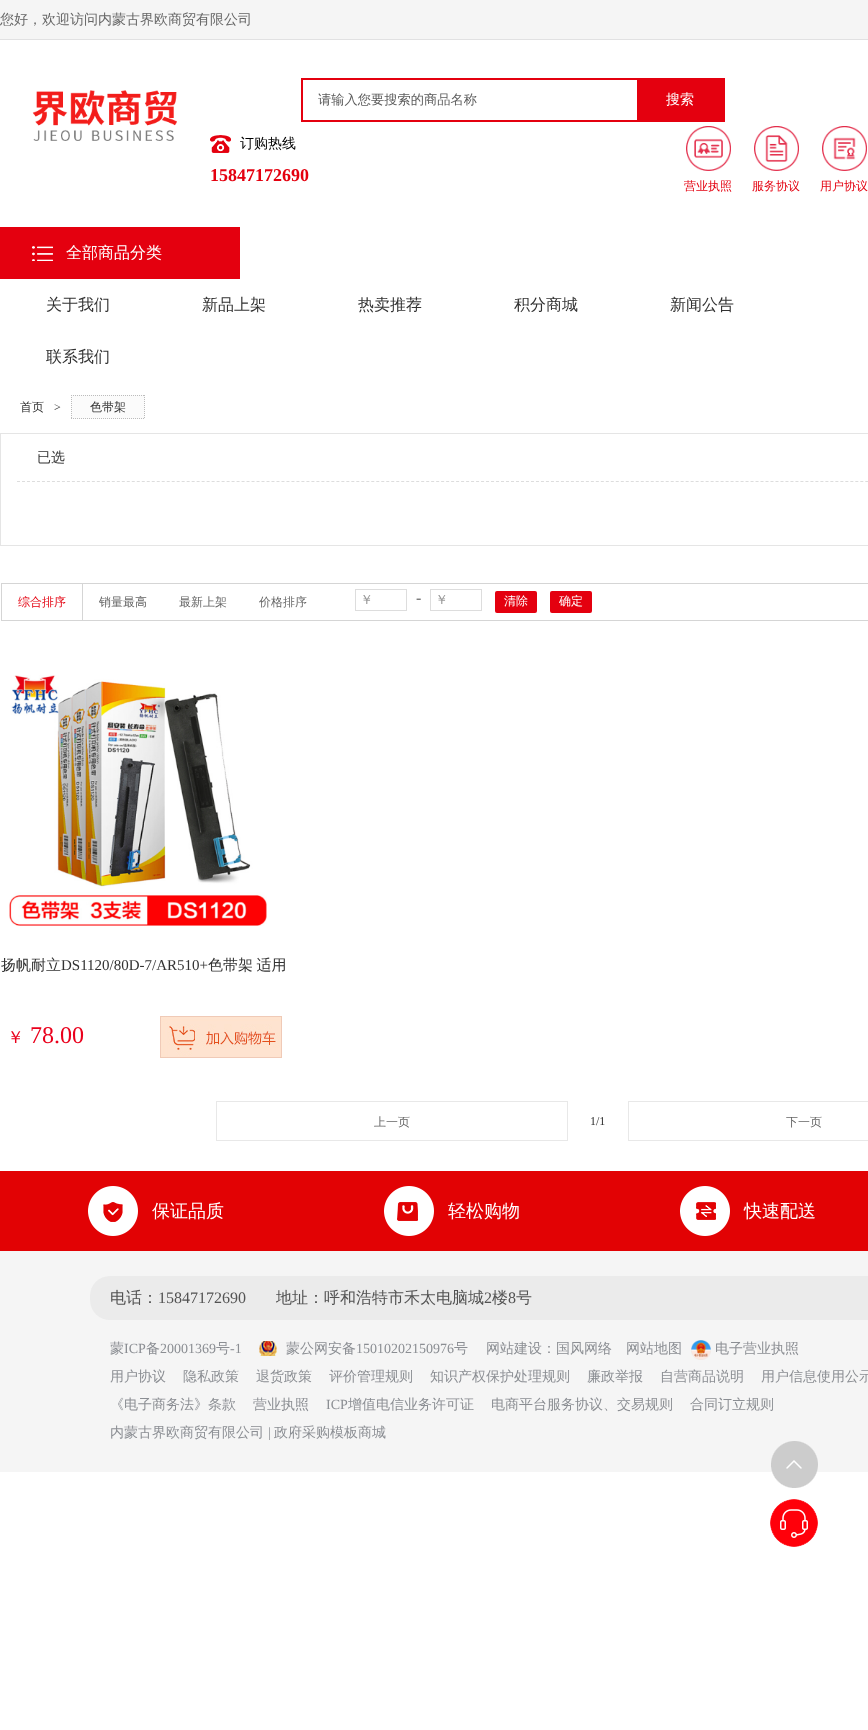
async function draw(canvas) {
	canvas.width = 868;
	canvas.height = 1730;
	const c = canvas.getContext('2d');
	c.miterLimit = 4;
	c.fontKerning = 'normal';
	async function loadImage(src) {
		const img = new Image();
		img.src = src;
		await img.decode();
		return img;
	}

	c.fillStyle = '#fff';
	c.fillRect(0, 0, 868, 1730);
	c.fillStyle = '#f5f5f5';
	c.fillRect(0, 0, 868, 39);
	c.fillStyle = '#e1e1e2';
	c.fillRect(0, 39, 868, 1);
	c.font = '500 14px WenQuanYi Zen Hei';
	c.fillStyle = '#666';
	c.fillText('您好，欢迎访问内蒙古界欧商贸有限公司', 0, 24);
	c.drawImage(await loadImage('img1.png'), 32, 90, 145, 51);
	c.strokeStyle = '#e4000f';
	c.lineWidth = 2;
	c.strokeRect(302, 79, 422, 42);
	c.font = '500 13.25px WenQuanYi Zen Hei';
	c.fillStyle = '#5d5d5d';
	c.fillText('请输入您要搜索的商品名称', 318, 104);
	c.fillStyle = '#e4000f';
	c.fillRect(637, 80, 86, 40);
	c.font = '500 14px WenQuanYi Zen Hei';
	c.fillStyle = '#fff';
	c.fillText('搜索', 666, 104);
	c.drawImage(await loadImage('img2.png'), 210, 135, 21, 18);
	c.fillStyle = '#000';
	c.fillText('订购热线', 240, 148);
	c.font = 'bold 18px Liberation Serif';
	c.fillStyle = '#e4000f';
	c.fillText('15847172690', 210, 181);
	c.drawImage(await loadImage('img3.png'), 686, 126, 45, 45);
	c.font = '500 12px WenQuanYi Zen Hei';
	c.fillText('营业执照', 684, 190);
	c.drawImage(await loadImage('img4.png'), 754, 126, 45, 45);
	c.fillText('服务协议', 752, 190);
	c.drawImage(await loadImage('img5.png'), 822, 126, 45, 45);
	c.fillText('用户协议', 820, 190);
	c.fillRect(0, 227, 240, 52);
	c.drawImage(await loadImage('img6.png'), 32, 246, 21, 15);
	c.font = '500 16px WenQuanYi Zen Hei';
	c.fillStyle = '#fff';
	c.fillText('全部商品分类', 66, 258);
	c.fillStyle = '#323232';
	for (const [text, x, y] of [
		['关于我们', 46, 310],
		['新品上架', 202, 310],
		['热卖推荐', 358, 310],
		['积分商城', 514, 310],
		['新闻公告', 670, 310],
		['联系我们', 46, 362],
	]) {
		c.fillText(text, x, y);
	}
	c.font = '500 12px WenQuanYi Zen Hei';
	c.fillText('首页', 20, 411);
	c.font = '12px Liberation Serif';
	c.fillText('>', 54, 411);
	c.fillStyle = '#fbfbfb';
	c.fillRect(71, 395, 74, 24);
	c.font = '500 12px WenQuanYi Zen Hei';
	c.fillStyle = '#323232';
	c.fillText('色带架', 90, 411);
	c.beginPath();
	c.moveTo(71, 395.5);
	c.lineTo(145, 395.5);
	c.strokeStyle = '#bcbcbc';
	c.lineWidth = 1;
	c.setLineDash([1, 1]);
	c.stroke();
	c.beginPath();
	c.moveTo(144.5, 395);
	c.lineTo(144.5, 419);
	c.stroke();
	c.beginPath();
	c.moveTo(71, 418.5);
	c.lineTo(145, 418.5);
	c.stroke();
	c.beginPath();
	c.moveTo(71.5, 395);
	c.lineTo(71.5, 419);
	c.stroke();
	c.strokeStyle = '#e5e5e5';
	c.setLineDash([]);
	c.strokeRect(0.5, 433.5, 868, 112);
	c.beginPath();
	c.moveTo(17, 481.5);
	c.lineTo(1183, 481.5);
	c.strokeStyle = '#ddd';
	c.setLineDash([3, 1.99]);
	c.stroke();
	c.font = '500 14px WenQuanYi Zen Hei';
	c.fillText('已选', 37, 462);
	c.strokeStyle = '#d5d5d5';
	c.setLineDash([]);
	c.strokeRect(1.5, 583.5, 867, 37);
	c.fillStyle = '#d5d5d5';
	c.fillRect(82, 584, 1, 36);
	c.font = '500 12px WenQuanYi Zen Hei';
	c.fillStyle = '#e4000f';
	c.fillText('综合排序', 18, 606);
	c.fillStyle = '#666';
	for (const [text, x, y] of [
		['销量最高', 99, 606],
		['最新上架', 179, 606],
		['价格排序', 259, 606],
	]) {
		c.fillText(text, x, y);
	}
	c.strokeStyle = '#ddd';
	c.strokeRect(355.5, 589.5, 51, 21);
	c.font = '500 13.25px WenQuanYi Zen Hei';
	c.fillStyle = '#999';
	c.fillText('￥', 360, 604);
	c.font = '16px Liberation Serif';
	c.fillStyle = '#666';
	c.fillText('-', 416, 603);
	c.strokeRect(430.5, 589.5, 51, 21);
	c.font = '500 13.25px WenQuanYi Zen Hei';
	c.fillStyle = '#999';
	c.fillText('￥', 435, 604);
	c.fillStyle = '#e4000f';
	c.beginPath();
	c.roundRect(495, 591, 42, 22, 2);
	c.fill();
	c.font = '500 12px WenQuanYi Zen Hei';
	c.fillStyle = '#fff';
	c.fillText('清除', 504, 605);
	c.fillStyle = '#e4000f';
	c.beginPath();
	c.roundRect(550, 591, 42, 22, 2);
	c.fill();
	c.fillStyle = '#fff';
	c.fillText('确定', 559, 605);
	c.drawImage(await loadImage('img7.png'), 9, 675, 258, 251);
	c.font = '500 15px WenQuanYi Zen Hei';
	c.fillStyle = '#323232';
	c.fillText('扬帆耐立', 1, 970);
	c.font = '15px Liberation Serif';
	c.fillText('DS1120/80D-7/AR510+', 61, 970);
	c.wordSpacing = '-1px';
	c.font = '500 15px WenQuanYi Zen Hei';
	c.fillText('色带架 适用', 208, 970);
	c.wordSpacing = '0px';
	c.font = '500 17px WenQuanYi Zen Hei';
	c.fillStyle = '#ea001c';
	c.fillText('￥', 7, 1043);
	c.font = '24px Liberation Serif';
	c.fillText('78.00', 30, 1043);
	c.drawImage(await loadImage('img8.png'), 160, 1016, 122, 42);
	c.strokeStyle = '#e8e8e8';
	c.strokeRect(216.5, 1101.5, 351, 39);
	c.font = '500 12px WenQuanYi Zen Hei';
	c.fillStyle = '#666';
	c.fillText('上一页', 374, 1126);
	c.font = '12px Liberation Serif';
	c.fillStyle = '#323232';
	c.fillText('1/1', 590, 1125);
	c.strokeRect(628.5, 1101.5, 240, 39);
	c.font = '500 12px WenQuanYi Zen Hei';
	c.fillStyle = '#666';
	c.fillText('下一页', 786, 1126);
	c.fillStyle = '#e20204';
	c.fillRect(0, 1171, 868, 80);
	c.drawImage(await loadImage('img9.png'), 88, 1186, 50, 50);
	c.font = '500 18px WenQuanYi Zen Hei';
	c.fillStyle = '#fff';
	c.fillText('保证品质', 152, 1217);
	c.drawImage(await loadImage('img10.png'), 384, 1186, 50, 50);
	c.fillText('轻松购物', 448, 1217);
	c.drawImage(await loadImage('img11.png'), 680, 1186, 50, 50);
	c.fillText('快速配送', 744, 1217);
	c.fillStyle = '#f5f5f5';
	c.fillRect(0, 1251, 868, 221);
	c.fillStyle = '#ebebeb';
	c.beginPath();
	c.roundRect(90, 1276, 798, 44, 20);
	c.fill();
	c.font = '500 16px WenQuanYi Zen Hei';
	c.fillStyle = '#525252';
	c.fillText('电话：', 110, 1303);
	c.font = '16px Liberation Serif';
	c.fillText('15847172690', 158, 1303);
	c.font = '500 16px WenQuanYi Zen Hei';
	c.fillText('地址：呼和浩特市禾太电脑城', 276, 1303);
	c.font = '16px Liberation Serif';
	c.fillText('2', 484, 1303);
	c.font = '500 16px WenQuanYi Zen Hei';
	c.fillText('楼', 492, 1303);
	c.font = '16px Liberation Serif';
	c.fillText('8', 508, 1303);
	c.font = '500 16px WenQuanYi Zen Hei';
	c.fillText('号', 516, 1303);
	c.font = '500 14px WenQuanYi Zen Hei';
	c.fillStyle = '#8b8e93';
	c.fillText('蒙', 110, 1353);
	c.font = '14px Liberation Serif';
	c.fillText('ICP', 124, 1353);
	c.font = '500 14px WenQuanYi Zen Hei';
	c.fillText('备', 146, 1353);
	c.font = '14px Liberation Serif';
	c.fillText('20001369', 160, 1353);
	c.font = '500 14px WenQuanYi Zen Hei';
	c.fillText('号', 216, 1353);
	c.font = '14px Liberation Serif';
	c.fillText('-1', 230, 1353);
	c.drawImage(await loadImage('img12.png'), 259, 1341, 18, 15);
	c.font = '500 14px WenQuanYi Zen Hei';
	c.fillText('蒙公网安备', 286, 1353);
	c.font = '14px Liberation Serif';
	c.fillText('15010202150976', 356, 1353);
	c.font = '500 14px WenQuanYi Zen Hei';
	for (const [text, x, y] of [
		['号', 454, 1353],
		['网站建设：国风网络', 486, 1353],
		['网站地图', 626, 1353],
	]) {
		c.fillText(text, x, y);
	}
	c.drawImage(await loadImage('img13.png'), 691, 1340, 20, 20);
	for (const [text, x, y] of [
		['电子营业执照', 715, 1353],
		['用户协议', 110, 1381],
		['隐私政策', 183, 1381],
		['退货政策', 256, 1381],
		['评价管理规则', 329, 1381],
		['知识产权保护处理规则', 430, 1381],
		['廉政举报', 587, 1381],
		['自营商品说明', 660, 1381],
		['用户信息使用公示', 761, 1381],
		['《电子商务法》条款', 110, 1409],
		['营业执照', 253, 1409],
	]) {
		c.fillText(text, x, y);
	}
	c.font = '14px Liberation Serif';
	c.fillText('ICP', 326, 1409);
	c.font = '500 14px WenQuanYi Zen Hei';
	for (const [text, x, y] of [
		['增值电信业务许可证', 348, 1409],
		['电商平台服务协议、交易规则', 491, 1409],
		['合同订立规则', 690, 1409],
		['内蒙古界欧商贸有限公司', 110, 1437],
	]) {
		c.fillText(text, x, y);
	}
	c.font = '14px Liberation Serif';
	c.fillText('|', 268, 1437);
	c.font = '500 14px WenQuanYi Zen Hei';
	c.fillText('政府采购模板商城', 274, 1437);
	c.drawImage(await loadImage('img14.png'), 771, 1441, 47, 47);
	c.drawImage(await loadImage('img15.png'), 770, 1499, 48, 48);
}

draw(document.querySelector('canvas'));
